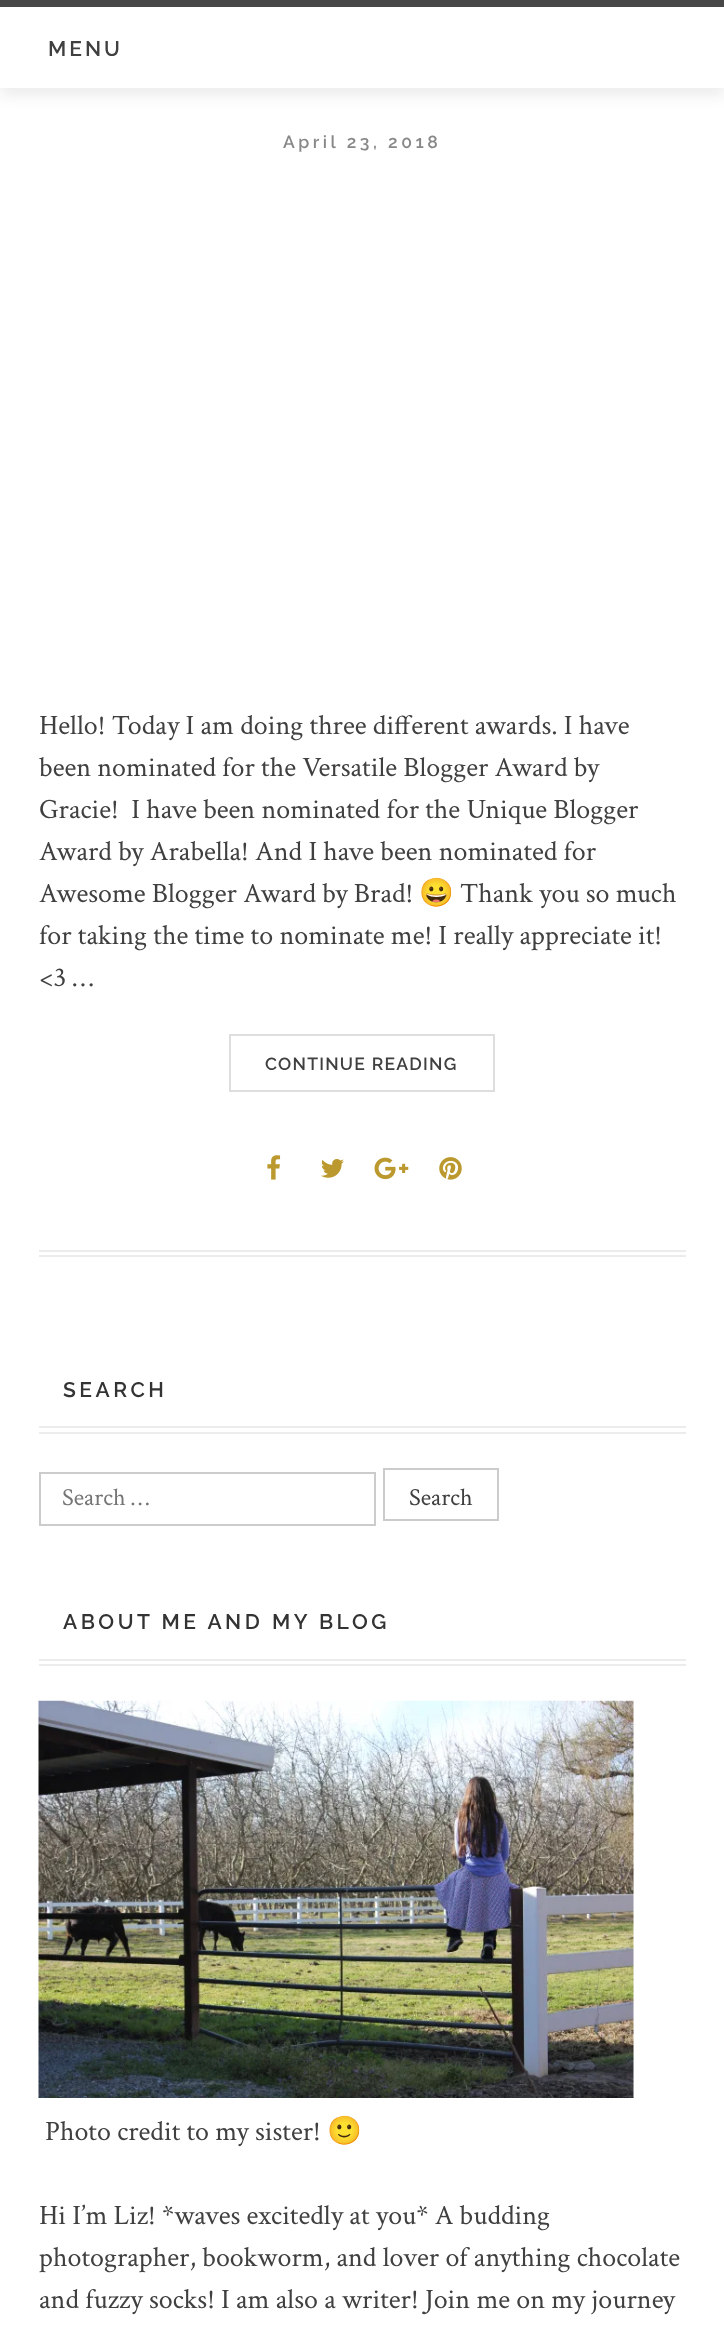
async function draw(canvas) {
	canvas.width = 724;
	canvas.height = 2329;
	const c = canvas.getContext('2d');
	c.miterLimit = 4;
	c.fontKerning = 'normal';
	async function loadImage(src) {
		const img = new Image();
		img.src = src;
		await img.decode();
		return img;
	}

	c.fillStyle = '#fff';
	c.fillRect(0, 0, 724, 2329);
	c.fillStyle = '#16161614';
	c.filter = 'blur(7px)';
	c.beginPath();
	c.rect(0, 9, 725, 87);
	c.fill();
	c.filter = 'none';
	c.fillStyle = '#fff';
	c.fillRect(0, 7, 724, 81);
	c.fillStyle = '#474747';
	c.fillRect(0, 0, 724, 7);
	c.letterSpacing = '3px';
	c.font = '600 21px Raleway';
	c.fillStyle = '#404040';
	c.fillText('MENU', 48, 56);
	c.fillStyle = '#ececec';
	c.fillRect(39, 1250, 647, 2);
	c.fillRect(39, 1255, 647, 2);
	c.letterSpacing = '3.5px';
	c.font = '600 17.5px Raleway';
	c.fillStyle = '#888';
	c.fillText('April 23, 2018', 283, 148);
	c.letterSpacing = '0px';
	c.font = '28px Crimson Text';
	c.fillStyle = '#404040';
	for (const [text, x, y] of [
		['Hello! Today I am doing three different awards. I have', 39, 734],
		['been nominated for the Versatile Blogger Award by', 39, 776],
		['Gracie!  I have been nominated for the Unique Blogger', 39, 818],
		['Award by Arabella! And I have been nominated for', 39, 860],
		['Awesome Blogger Award by Brad!', 39, 902],
	]) {
		c.fillText(text, x, y);
	}
	c.font = '28px Noto Color Emoji';
	c.fillText('😀', 419, 902);
	c.font = '28px Crimson Text';
	for (const [text, x, y] of [
		['Thank you so much', 460, 902],
		['for taking the time to nominate me! I really appreciate it!', 39, 944],
		['<3 …', 39, 986],
	]) {
		c.fillText(text, x, y);
	}
	c.strokeStyle = '#dedede';
	c.lineWidth = 2;
	c.strokeRect(230, 1035, 264, 56);
	c.letterSpacing = '1.25px';
	c.font = '600 17.5px Raleway';
	c.fillText('CONTINUE READING', 265, 1070);
	c.drawImage(await loadImage('img1.png'), 267, 1155, 14, 25);
	c.drawImage(await loadImage('img2.png'), 321, 1159, 23, 19);
	c.drawImage(await loadImage('img3.png'), 374, 1157, 35, 23);
	c.drawImage(await loadImage('img4.png'), 439, 1157, 23, 23);
	c.fillStyle = '#ececec';
	c.fillRect(39, 1426, 647, 2);
	c.fillRect(39, 1432, 647, 2);
	c.letterSpacing = '3.5px';
	c.font = '600 21px Raleway';
	c.fillStyle = '#333';
	c.fillText('SEARCH', 63, 1397);
	c.strokeStyle = '#ccc';
	c.strokeRect(40, 1473, 335, 52);
	c.letterSpacing = '0px';
	c.font = '24.5px Crimson Text';
	c.fillStyle = '#757575';
	c.fillText('Search …', 62, 1505);
	c.strokeRect(384, 1469, 114, 51);
	c.fillStyle = '#404040';
	c.fillText('Search', 409, 1505);
	c.fillStyle = '#ececec';
	c.fillRect(39, 1659, 647, 2);
	c.fillRect(39, 1664, 647, 2);
	c.letterSpacing = '3.5px';
	c.font = '600 21px Raleway';
	c.fillStyle = '#333';
	c.fillText('ABOUT ME AND MY BLOG', 63, 1629);
	c.drawImage(await loadImage('img5.png'), 38, 1700, 596, 398);
	c.letterSpacing = '0px';
	c.font = '28px Crimson Text';
	c.fillStyle = '#404040';
	c.fillText('Photo credit to my sister!', 45, 2140);
	c.font = '28px Noto Color Emoji';
	c.fillText('🙂', 327, 2140);
	c.font = '28px Crimson Text';
	for (const [text, x, y] of [
		['Hi I’m Liz! *waves excitedly at you* A budding', 39, 2224],
		['photographer, bookworm, and lover of anything chocolate', 39, 2266],
		['and fuzzy socks! I am also a writer! Join me on my journey', 39, 2308],
	]) {
		c.fillText(text, x, y);
	}
}

draw(document.querySelector('canvas'));
